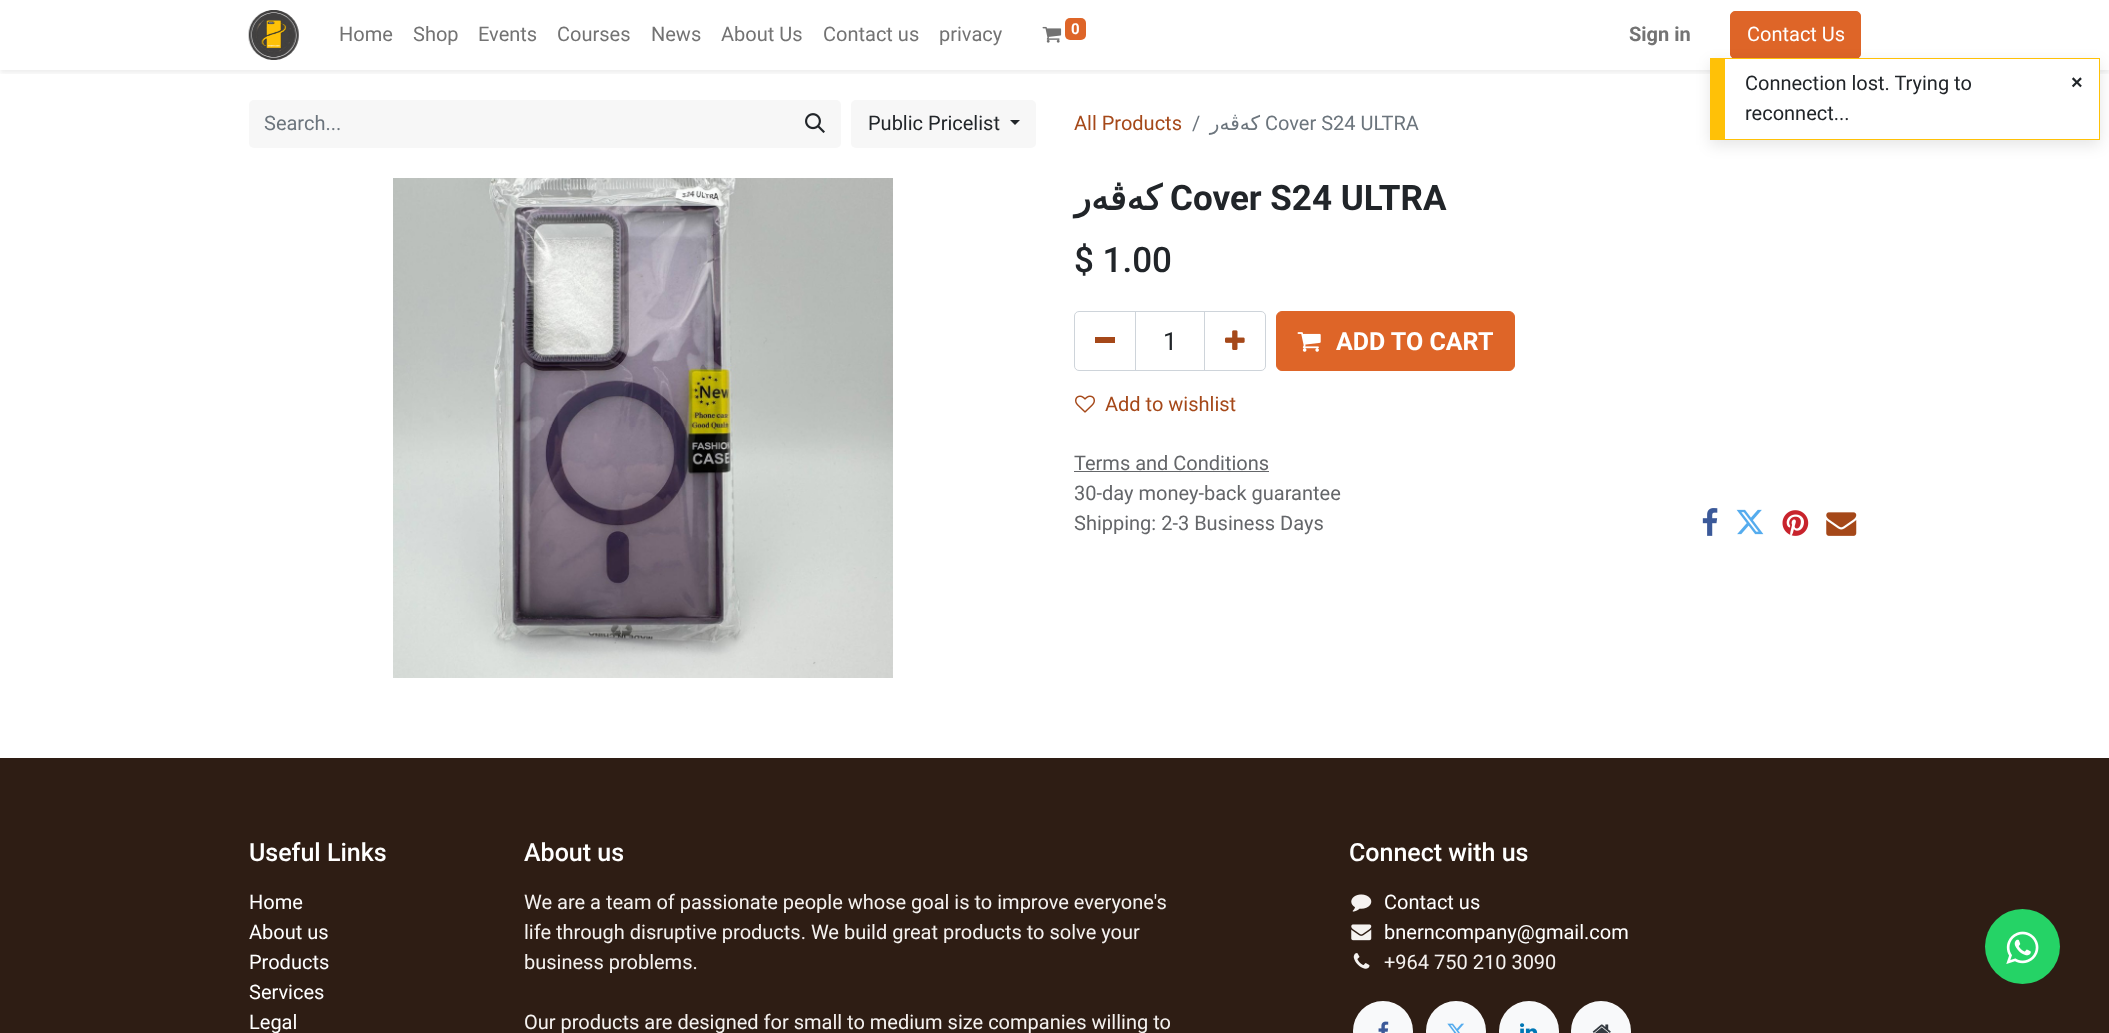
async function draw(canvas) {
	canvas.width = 2109;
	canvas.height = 1033;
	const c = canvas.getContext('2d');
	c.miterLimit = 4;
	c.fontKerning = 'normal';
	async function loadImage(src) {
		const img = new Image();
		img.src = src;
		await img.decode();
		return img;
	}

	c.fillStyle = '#fff';
	c.fillRect(0, 0, 2109, 1033);
	c.save();
	c.beginPath();
	c.rect(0, 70, 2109, 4);
	c.clip();
	c.fillStyle = '#00000012';
	c.filter = 'blur(2.5px)';
	c.beginPath();
	c.rect(0, 3, 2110, 70);
	c.fill();
	c.filter = 'none';
	c.restore();
	c.drawImage(await loadImage('img1.png'), 248, 10, 51, 50);
	c.font = '20px Roboto';
	c.fillStyle = '#737373';
	for (const [text, x, y] of [
		['Home', 339, 41],
		['Shop', 413, 41],
		['Events', 478, 41],
		['Courses', 557, 41],
		['News', 651, 41],
		['About Us', 721, 41],
		['Contact us', 823, 41],
		['privacy', 939, 41],
	]) {
		c.fillText(text, x, y);
	}
	c.drawImage(await loadImage('img2.png'), 1042, 26, 20, 17);
	c.fillStyle = '#de6528';
	c.beginPath();
	c.roundRect(1065, 18, 21, 22, 5);
	c.fill();
	c.font = 'bold 15px Roboto';
	c.fillStyle = '#fff';
	c.fillText('0', 1071, 34);
	c.font = 'bold 20px Roboto';
	c.fillStyle = '#737373';
	c.fillText('Sign in', 1629, 41);
	c.fillStyle = '#de6528';
	c.beginPath();
	c.roundRect(1730.5, 11.5, 130, 47, 4.5);
	c.fill();
	c.strokeStyle = '#de6528';
	c.stroke();
	c.font = '20px Roboto';
	c.fillStyle = '#fff';
	c.fillText('Contact Us', 1747, 41);
	c.fillStyle = '#f7f7f7';
	c.beginPath();
	c.roundRect(249, 100, 541, 48, [5, 0, 0, 5]);
	c.fill();
	c.fillStyle = '#6c757d';
	c.fillText('Search...', 264, 130);
	c.fillStyle = '#f7f7f7';
	c.beginPath();
	c.roundRect(789, 100, 52, 48, [0, 5, 5, 0]);
	c.fill();
	c.drawImage(await loadImage('img3.png'), 805, 113, 20, 20);
	c.beginPath();
	c.roundRect(851, 100, 185, 48, 5);
	c.fill();
	c.fillStyle = '#212529';
	c.fillText('Public Pricelist', 868, 130);
	c.beginPath();
	c.moveTo(1010, 120);
	c.lineTo(1020, 120);
	c.lineTo(1015, 125);
	c.closePath();
	c.fill();
	c.fillStyle = '#a54819';
	c.fillText('All Products', 1074, 130);
	c.fillStyle = '#6c757d';
	c.fillText('/', 1192, 130);
	c.direction = 'rtl';
	c.font = '20px DejaVu Sans';
	c.fillText('کەڤەر', 1260, 130);
	c.direction = 'ltr';
	c.font = '20px Roboto';
	c.fillText('Cover S24 ULTRA', 1265, 130);
	c.drawImage(await loadImage('img4.png'), 393, 178, 500, 500);
	c.direction = 'rtl';
	c.font = 'bold 35px DejaVu Sans';
	c.fillStyle = '#212529';
	c.fillText('کەڤەر', 1162, 210);
	c.direction = 'ltr';
	c.font = 'bold 35px Roboto';
	c.fillText('Cover S24 ULTRA', 1170, 210);
	c.font = '500 35px Roboto';
	c.fillText('$ 1.00', 1074, 272);
	c.strokeStyle = '#ced4da';
	c.strokeRect(1135.5, 311.5, 69, 59);
	c.beginPath();
	c.roundRect(1074.5, 311.5, 61, 59, [4.5, 0, 0, 4.5]);
	c.stroke();
	c.fillStyle = '#a54819';
	c.fillRect(1095, 337, 20, 6);
	c.font = '25px Roboto';
	c.fillStyle = '#212529';
	c.fillText('1', 1163, 350);
	c.beginPath();
	c.roundRect(1204.5, 311.5, 61, 59, [0, 4.5, 4.5, 0]);
	c.stroke();
	c.drawImage(await loadImage('img5.png'), 1225, 330, 20, 20);
	c.fillStyle = '#de6528';
	c.beginPath();
	c.roundRect(1276.5, 311.5, 238, 59, 5.5);
	c.fill();
	c.strokeStyle = '#de6528';
	c.stroke();
	c.drawImage(await loadImage('img6.png'), 1297, 332, 24, 20);
	c.font = 'bold 25px Roboto';
	c.fillStyle = '#fff';
	c.fillText('ADD TO CART', 1336, 350);
	c.drawImage(await loadImage('img7.png'), 1075, 395, 20, 18);
	c.font = '20px Roboto';
	c.fillStyle = '#a54819';
	c.fillText('Add to wishlist', 1105, 411);
	c.fillStyle = '#646669';
	c.fillText('Terms and Conditions', 1074, 470);
	c.fillRect(1074, 471, 195, 1);
	c.fillText('30-day money-back guarantee', 1074, 500);
	c.fillText('Shipping: 2-3 Business Days', 1074, 530);
	c.drawImage(await loadImage('img8.png'), 1702, 508, 16, 28);
	c.drawImage(await loadImage('img9.png'), 1736, 509, 28, 26);
	c.drawImage(await loadImage('img10.png'), 1782, 510, 27, 26);
	c.drawImage(await loadImage('img11.png'), 1826, 512, 31, 24);
	c.fillStyle = '#2e1d14';
	c.fillRect(0, 758, 2109, 275);
	c.font = '500 25px Roboto';
	c.fillStyle = '#fff';
	c.fillText('Useful Links', 249, 861);
	c.font = '20px Roboto';
	for (const [text, x, y] of [
		['Home', 249, 909],
		['About us', 249, 939],
		['Products', 249, 969],
		['Services', 249, 999],
		['Legal', 249, 1029],
	]) {
		c.fillText(text, x, y);
	}
	c.font = '500 25px Roboto';
	c.fillText('About us', 524, 861);
	c.font = '20px Roboto';
	c.fillStyle = '#f5f2f0';
	for (const [text, x, y] of [
		['We are a team of passionate people whose goal is to improve everyone\'s', 524, 909],
		['life through disruptive products. We build great products to solve your', 524, 939],
		['business problems.', 524, 969],
		['Our products are designed for small to medium size companies willing to', 524, 1029],
	]) {
		c.fillText(text, x, y);
	}
	c.font = '500 25px Roboto';
	c.fillStyle = '#fff';
	c.fillText('Connect with us', 1349, 861);
	c.drawImage(await loadImage('img12.png'), 1351, 894, 21, 18);
	c.font = '20px Roboto';
	c.fillText('Contact us', 1384, 909);
	c.drawImage(await loadImage('img13.png'), 1351, 924, 21, 17);
	c.fillText('bnerncompany@gmail.com', 1384, 939);
	c.drawImage(await loadImage('img14.png'), 1353, 953, 17, 16);
	c.fillStyle = '#f5f2f0';
	c.fillText('+964 750 210 3090', 1384, 969);
	c.fillStyle = '#25d366';
	c.beginPath();
	c.arc(2022.5, 946.5, 37.5, 0, 2 * Math.PI);
	c.fill();
	c.drawImage(await loadImage('img15.png'), 2006, 931, 33, 33);
	c.fillStyle = '#f8f9fa';
	c.beginPath();
	c.arc(1383, 1031, 30, 0, 2 * Math.PI);
	c.fill();
	c.drawImage(await loadImage('img16.png'), 1378, 1021, 11, 12);
	c.beginPath();
	c.arc(1456, 1031, 30, 0, 2 * Math.PI);
	c.fill();
	c.drawImage(await loadImage('img17.png'), 1447, 1023, 17, 10);
	c.beginPath();
	c.arc(1529, 1031, 30, 0, 2 * Math.PI);
	c.fill();
	c.drawImage(await loadImage('img18.png'), 1520, 1023, 18, 10);
	c.beginPath();
	c.arc(1601, 1031, 30, 0, 2 * Math.PI);
	c.fill();
	c.drawImage(await loadImage('img19.png'), 1592, 1024, 19, 9);
	c.fillStyle = '#0000001a';
	c.filter = 'blur(7.5px)';
	c.beginPath();
	c.rect(1710, 63, 390, 82);
	c.fill();
	c.filter = 'none';
	for (const [x, y, w, h, color] of [
		[1725, 59, 374, 80, '#fff'],
		[1725, 58, 375, 1, '#ffc107'],
		[2099, 58, 1, 82, '#ffc107'],
		[1725, 139, 375, 1, '#ffc107'],
		[1710, 58, 15, 82, '#ffc107'],
	]) {
		c.fillStyle = color;
		c.fillRect(x, y, w, h);
	}
	c.fillStyle = '#212529';
	c.fillText('Connection lost. Trying to', 1745, 90);
	c.fillText('reconnect...', 1745, 120);
	c.font = 'bold 20px Liberation Sans';
	c.fillText('×', 2071, 89);
}

draw(document.querySelector('canvas'));
